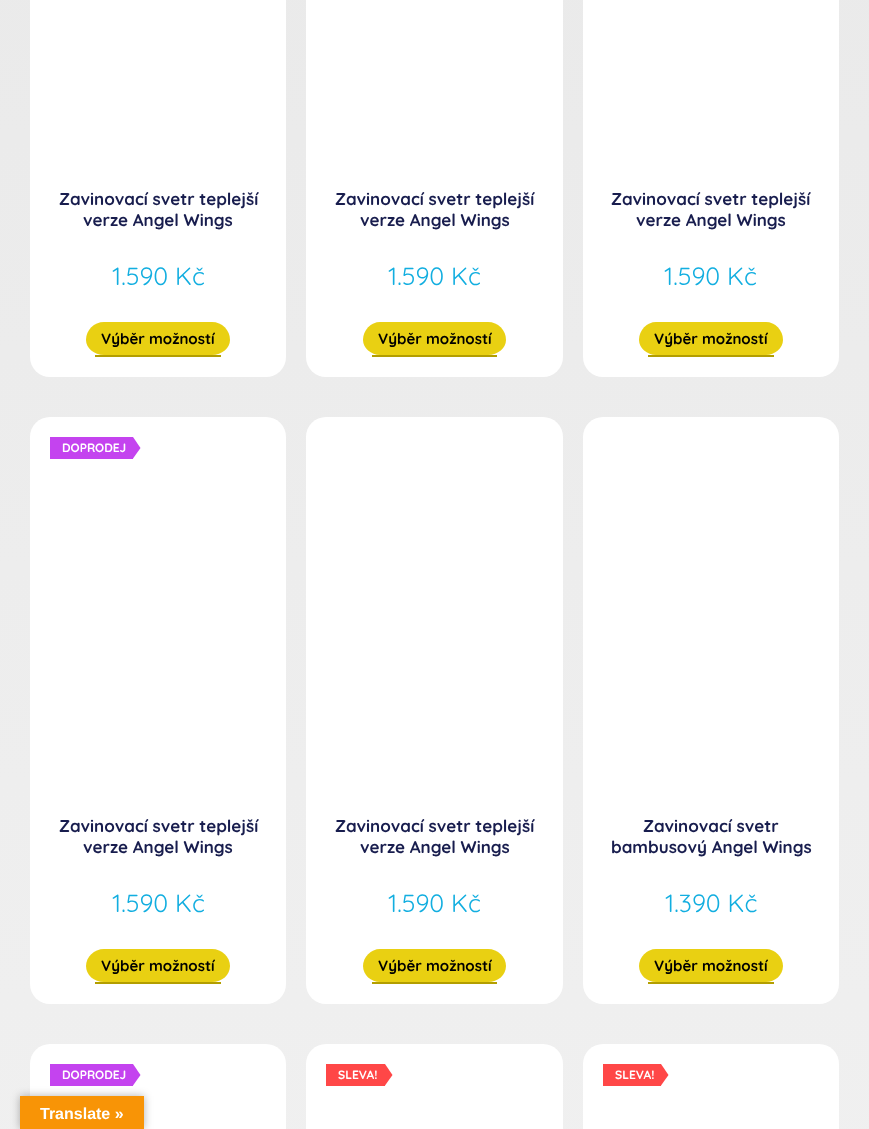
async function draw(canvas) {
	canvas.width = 869;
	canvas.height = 1129;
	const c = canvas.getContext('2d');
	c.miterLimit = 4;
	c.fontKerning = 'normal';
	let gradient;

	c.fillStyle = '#fff';
	c.fillRect(0, 0, 869, 1129);
	gradient = c.createLinearGradient(434, -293, 435, 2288);
	gradient.addColorStop(0, '#e9e9e9');
	gradient.addColorStop(1, '#f5f5f5');
	c.fillStyle = gradient;
	c.fillRect(0, 0, 869, 1129);
	c.fillStyle = '#fff';
	c.beginPath();
	c.roundRect(30, -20, 256, 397, 20);
	c.fill();
	c.font = 'bold 17px Quicksand';
	c.fillStyle = '#181d4e';
	c.fillText('Zavinovací svetr teplejší', 59, 205);
	c.fillText('verze Angel Wings', 83, 226);
	c.font = '25px Quicksand';
	c.fillStyle = '#12aee0';
	c.fillText('1.590 Kč', 112, 285);
	c.fillStyle = '#e9d012';
	c.beginPath();
	c.moveTo(104, 322);
	c.lineTo(212, 322);
	c.bezierCurveTo(222, 322, 230, 330, 230, 340);
	c.bezierCurveTo(230, 348, 222, 355, 212, 355);
	c.lineTo(104, 355);
	c.bezierCurveTo(94, 355, 86, 348, 86, 340);
	c.bezierCurveTo(86, 330, 94, 322, 104, 322);
	c.closePath();
	c.fill();
	c.fillStyle = '#b39e00';
	c.fillRect(95, 355, 126, 2);
	c.font = 'bold 15px Quicksand';
	c.fillStyle = '#000';
	c.fillText('Výběr možností', 101, 344);
	c.fillStyle = '#fff';
	c.beginPath();
	c.roundRect(306, -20, 257, 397, 20);
	c.fill();
	c.font = 'bold 17px Quicksand';
	c.fillStyle = '#181d4e';
	c.fillText('Zavinovací svetr teplejší', 335, 205);
	c.fillText('verze Angel Wings', 360, 226);
	c.font = '25px Quicksand';
	c.fillStyle = '#12aee0';
	c.fillText('1.590 Kč', 388, 285);
	c.fillStyle = '#e9d012';
	c.beginPath();
	c.moveTo(380, 322);
	c.lineTo(488, 322);
	c.bezierCurveTo(498, 322, 506, 330, 506, 340);
	c.bezierCurveTo(506, 348, 498, 355, 488, 355);
	c.lineTo(380, 355);
	c.bezierCurveTo(371, 355, 363, 348, 363, 340);
	c.bezierCurveTo(363, 330, 371, 322, 380, 322);
	c.closePath();
	c.fill();
	c.fillStyle = '#b39e00';
	c.fillRect(372, 355, 125, 2);
	c.font = 'bold 15px Quicksand';
	c.fillStyle = '#000';
	c.fillText('Výběr možností', 378, 344);
	c.fillStyle = '#fff';
	c.beginPath();
	c.roundRect(583, -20, 256, 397, 20);
	c.fill();
	c.font = 'bold 17px Quicksand';
	c.fillStyle = '#181d4e';
	c.fillText('Zavinovací svetr teplejší', 611, 205);
	c.fillText('verze Angel Wings', 636, 226);
	c.font = '25px Quicksand';
	c.fillStyle = '#12aee0';
	c.fillText('1.590 Kč', 664, 285);
	c.fillStyle = '#e9d012';
	c.beginPath();
	c.moveTo(656, 322);
	c.lineTo(766, 322);
	c.bezierCurveTo(775, 322, 783, 330, 783, 340);
	c.bezierCurveTo(783, 348, 775, 355, 766, 355);
	c.lineTo(656, 355);
	c.bezierCurveTo(647, 355, 639, 348, 639, 340);
	c.bezierCurveTo(639, 330, 647, 322, 656, 322);
	c.closePath();
	c.fill();
	c.fillStyle = '#b39e00';
	c.fillRect(648, 355, 126, 2);
	c.font = 'bold 15px Quicksand';
	c.fillStyle = '#000';
	c.fillText('Výběr možností', 654, 344);
	c.fillStyle = '#fff';
	c.beginPath();
	c.roundRect(30, 417, 256, 587, 20);
	c.fill();
	c.fillStyle = '#c443ef';
	c.fillRect(50, 437, 83, 22);
	c.font = 'bold 12px Quicksand';
	c.fillStyle = '#fff';
	c.fillText('DOPRODEJ', 62, 452);
	c.fillStyle = '#c443ef';
	c.beginPath();
	c.moveTo(133, 437);
	c.lineTo(133, 458.5);
	c.lineTo(140.5, 448);
	c.closePath();
	c.fill();
	c.font = 'bold 17px Quicksand';
	c.fillStyle = '#181d4e';
	c.fillText('Zavinovací svetr teplejší', 59, 832);
	c.fillText('verze Angel Wings', 83, 853);
	c.font = '25px Quicksand';
	c.fillStyle = '#12aee0';
	c.fillText('1.590 Kč', 112, 912);
	c.fillStyle = '#e9d012';
	c.beginPath();
	c.moveTo(104, 949);
	c.lineTo(212, 949);
	c.bezierCurveTo(222, 949, 230, 957, 230, 966);
	c.bezierCurveTo(230, 975, 222, 982, 212, 982);
	c.lineTo(104, 982);
	c.bezierCurveTo(94, 982, 86, 975, 86, 966);
	c.bezierCurveTo(86, 957, 94, 949, 104, 949);
	c.closePath();
	c.fill();
	c.fillStyle = '#b39e00';
	c.fillRect(95, 982, 126, 2);
	c.font = 'bold 15px Quicksand';
	c.fillStyle = '#000';
	c.fillText('Výběr možností', 101, 971);
	c.fillStyle = '#fff';
	c.beginPath();
	c.roundRect(306, 417, 257, 587, 20);
	c.fill();
	c.font = 'bold 17px Quicksand';
	c.fillStyle = '#181d4e';
	c.fillText('Zavinovací svetr teplejší', 335, 832);
	c.fillText('verze Angel Wings', 360, 853);
	c.font = '25px Quicksand';
	c.fillStyle = '#12aee0';
	c.fillText('1.590 Kč', 388, 912);
	c.fillStyle = '#e9d012';
	c.beginPath();
	c.moveTo(380, 949);
	c.lineTo(488, 949);
	c.bezierCurveTo(498, 949, 506, 957, 506, 966);
	c.bezierCurveTo(506, 975, 498, 982, 488, 982);
	c.lineTo(380, 982);
	c.bezierCurveTo(371, 982, 363, 975, 363, 966);
	c.bezierCurveTo(363, 957, 371, 949, 380, 949);
	c.closePath();
	c.fill();
	c.fillStyle = '#b39e00';
	c.fillRect(372, 982, 125, 2);
	c.font = 'bold 15px Quicksand';
	c.fillStyle = '#000';
	c.fillText('Výběr možností', 378, 971);
	c.fillStyle = '#fff';
	c.beginPath();
	c.roundRect(583, 417, 256, 587, 20);
	c.fill();
	c.font = 'bold 17px Quicksand';
	c.fillStyle = '#181d4e';
	c.fillText('Zavinovací svetr', 643, 832);
	c.fillText('bambusový Angel Wings', 611, 853);
	c.font = '25px Quicksand';
	c.fillStyle = '#12aee0';
	c.fillText('1.390 Kč', 665, 912);
	c.fillStyle = '#e9d012';
	c.beginPath();
	c.moveTo(656, 949);
	c.lineTo(766, 949);
	c.bezierCurveTo(775, 949, 783, 957, 783, 966);
	c.bezierCurveTo(783, 975, 775, 982, 766, 982);
	c.lineTo(656, 982);
	c.bezierCurveTo(647, 982, 639, 975, 639, 966);
	c.bezierCurveTo(639, 957, 647, 949, 656, 949);
	c.closePath();
	c.fill();
	c.fillStyle = '#b39e00';
	c.fillRect(648, 982, 126, 2);
	c.font = 'bold 15px Quicksand';
	c.fillStyle = '#000';
	c.fillText('Výběr možností', 654, 971);
	c.fillStyle = '#fff';
	c.beginPath();
	c.roundRect(30, 1044, 256, 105, 20);
	c.fill();
	c.fillStyle = '#c443ef';
	c.fillRect(50, 1064, 83, 22);
	c.font = 'bold 12px Quicksand';
	c.fillStyle = '#fff';
	c.fillText('DOPRODEJ', 62, 1079);
	c.fillStyle = '#c443ef';
	c.beginPath();
	c.moveTo(133, 1064);
	c.lineTo(133, 1085.5);
	c.lineTo(140.5, 1075);
	c.closePath();
	c.fill();
	c.fillStyle = '#fff';
	c.beginPath();
	c.roundRect(306, 1044, 257, 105, 20);
	c.fill();
	c.fillStyle = '#ff4747';
	c.fillRect(326, 1064, 59, 22);
	c.fillStyle = '#fff';
	c.fillText('SLEVA!', 338, 1079);
	c.fillStyle = '#ff4747';
	c.beginPath();
	c.moveTo(385, 1064);
	c.lineTo(385, 1085.5);
	c.lineTo(392.5, 1075);
	c.closePath();
	c.fill();
	c.fillStyle = '#fff';
	c.beginPath();
	c.roundRect(583, 1044, 256, 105, 20);
	c.fill();
	c.fillStyle = '#ff4747';
	c.fillRect(603, 1064, 58, 22);
	c.fillStyle = '#fff';
	c.fillText('SLEVA!', 615, 1079);
	c.fillStyle = '#ff4747';
	c.beginPath();
	c.moveTo(661, 1064);
	c.lineTo(661, 1085.5);
	c.lineTo(668.5, 1075);
	c.closePath();
	c.fill();
	c.fillStyle = '#0000004d';
	c.filter = 'blur(4.5px)';
	c.beginPath();
	c.rect(20, 1096, 124, 33);
	c.fill();
	c.filter = 'none';
	c.fillStyle = '#f89406';
	c.fillRect(20, 1096, 124, 33);
	c.font = 'bold 16px Liberation Sans';
	c.fillStyle = '#fff';
	c.fillText('Translate »', 40, 1119);
}

draw(document.querySelector('canvas'));
